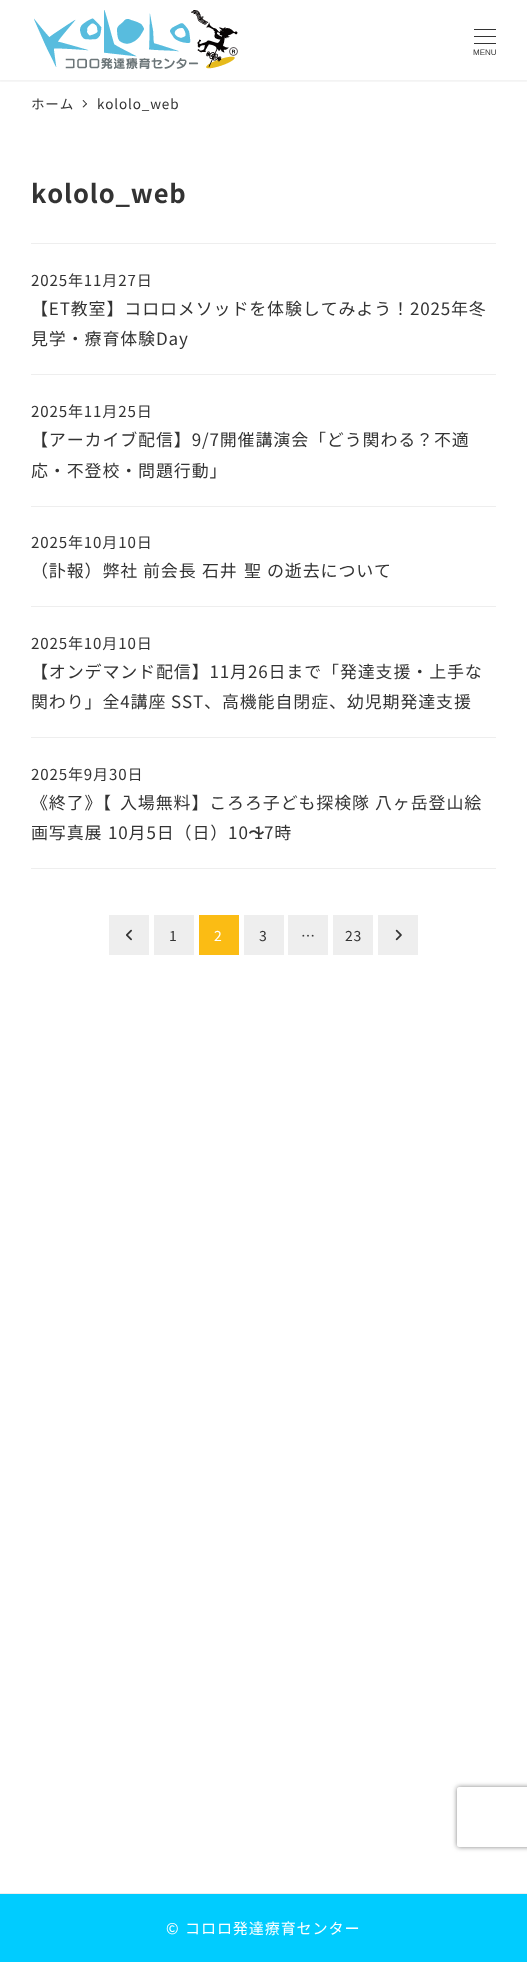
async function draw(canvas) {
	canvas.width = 527;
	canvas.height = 1962;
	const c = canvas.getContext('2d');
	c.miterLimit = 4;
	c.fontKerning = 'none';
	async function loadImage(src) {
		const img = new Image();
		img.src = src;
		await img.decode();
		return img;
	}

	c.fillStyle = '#fff';
	c.fillRect(0, 0, 527, 1962);
	c.save();
	c.beginPath();
	c.rect(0, 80, 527, 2);
	c.clip();
	c.fillStyle = '#0000000d';
	c.filter = 'blur(1px)';
	c.beginPath();
	c.rect(-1, 0, 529, 82);
	c.fill();
	c.filter = 'none';
	c.restore();
	c.drawImage(await loadImage('img1.png'), 34, 10, 204, 59);
	for (const [x, y, w, h, color] of [
		[474, 29, 22, 1, '#333'],
		[474, 36, 22, 1, '#333'],
		[474, 43, 22, 1, '#333'],
	]) {
		c.fillStyle = color;
		c.fillRect(x, y, w, h);
	}
	c.font = '8px Liberation Sans';
	c.fillText('MENU', 473, 55);
	c.letterSpacing = '0.85px';
	c.font = '13.5px Noto Sans JP';
	c.fillText('ホーム', 31, 109);
	c.beginPath();
	c.moveTo(83.5, 100);
	c.lineTo(87, 104);
	c.lineTo(86.5, 104.5);
	c.lineTo(82.5, 100.5);
	c.closePath();
	c.fill();
	c.beginPath();
	c.moveTo(86.5, 103);
	c.lineTo(87, 104);
	c.lineTo(83.5, 107.5);
	c.lineTo(82.5, 107);
	c.closePath();
	c.fill();
	c.fillText('kololo_web', 97, 109);
	c.font = 'bold 25.5px Noto Sans JP';
	c.fillText('kololo_web', 31, 203);
	c.fillStyle = '#eee';
	c.fillRect(31, 243, 465, 1);
	c.fillRect(31, 374, 465, 1);
	c.font = '15.1px Noto Sans JP';
	c.fillStyle = '#333';
	c.fillText('2025年11月27日', 31, 286);
	c.font = '17px Noto Sans JP';
	c.fillText('【ET教室】コロロメソッドを体験してみよう！2025年冬', 31, 315);
	c.fillText('見学・療育体験Day', 31, 345);
	c.fillStyle = '#eee';
	c.fillRect(31, 506, 465, 1);
	c.font = '15.1px Noto Sans JP';
	c.fillStyle = '#333';
	c.fillText('2025年11月25日', 31, 417);
	c.font = '17px Noto Sans JP';
	c.fillText('【アーカイブ配信】9/7開催講演会「どう関わる？不適', 31, 446);
	c.fillText('応・不登校・問題行動」', 31, 477);
	c.fillStyle = '#eee';
	c.fillRect(31, 606, 465, 1);
	c.font = '15.1px Noto Sans JP';
	c.fillStyle = '#333';
	c.fillText('2025年10月10日', 31, 548);
	c.font = '17px Noto Sans JP';
	for (const [text, x, y] of [
		['（訃報）弊社', 31, 577],
		['前会長', 143, 577],
		['石井', 202, 577],
		['聖', 244, 577],
		['の逝去について', 267, 577],
	]) {
		c.fillText(text, x, y);
	}
	c.fillStyle = '#eee';
	c.fillRect(31, 737, 465, 1);
	c.font = '15.1px Noto Sans JP';
	c.fillStyle = '#333';
	c.fillText('2025年10月10日', 31, 649);
	c.font = '17px Noto Sans JP';
	for (const [text, x, y] of [
		['【オンデマンド配信】11月26日まで「発達支援・上手な', 31, 678],
		['関わり」全4講座', 31, 708],
		['SST、高機能自閉症、幼児期発達支援', 171, 708],
	]) {
		c.fillText(text, x, y);
	}
	c.fillStyle = '#eee';
	c.fillRect(31, 868, 465, 1);
	c.font = '15.1px Noto Sans JP';
	c.fillStyle = '#333';
	c.fillText('2025年9月30日', 31, 780);
	c.font = '17px Noto Sans JP';
	for (const [text, x, y] of [
		['《終了》【', 31, 809],
		['入場無料】ころろ子ども探検隊', 120, 809],
		['八ヶ岳登山絵', 375, 809],
		['画写真展', 31, 839],
		['10月5日（日）10 17時', 108, 839],
	]) {
		c.fillText(text, x, y);
	}
	c.font = '500 17px WenQuanYi Zen Hei';
	c.fillText('〜', 248, 839);
	c.fillStyle = '#eee';
	c.fillRect(109, 915, 40, 40);
	c.drawImage(await loadImage('img2.png'), 126, 929, 6, 12);
	c.fillRect(154, 915, 40, 40);
	c.font = '14px Noto Sans JP';
	c.fillStyle = '#333';
	c.fillText('1', 169, 941);
	c.fillStyle = '#fbbc14';
	c.fillRect(199, 915, 40, 40);
	c.fillStyle = '#fff';
	c.fillText('2', 214, 941);
	c.fillStyle = '#eee';
	c.fillRect(244, 915, 40, 40);
	c.fillStyle = '#333';
	c.fillText('3', 259, 941);
	c.fillStyle = '#eee';
	c.fillRect(288, 915, 40, 40);
	c.fillStyle = '#333';
	c.fillText('…', 301, 941);
	c.fillStyle = '#eee';
	c.fillRect(333, 915, 40, 40);
	c.fillStyle = '#333';
	c.fillText('23', 345, 941);
	c.fillStyle = '#eee';
	c.fillRect(378, 915, 40, 40);
	c.drawImage(await loadImage('img3.png'), 395, 929, 7, 12);
	c.fillRect(0, 1893, 527, 1);
	c.fillStyle = '#0cf';
	c.fillRect(0, 1894, 527, 68);
	c.font = '15.1px Noto Sans JP';
	c.fillStyle = '#fff';
	c.fillText('©', 166, 1934);
	c.fillText('コロロ発達療育センター', 185, 1934);
	c.save();
	c.beginPath();
	c.moveTo(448, 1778);
	c.lineTo(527, 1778);
	c.lineTo(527, 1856);
	c.lineTo(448, 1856);
	c.closePath();
	c.moveTo(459, 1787);
	c.lineTo(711, 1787);
	c.bezierCurveTo(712, 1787, 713, 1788, 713, 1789);
	c.lineTo(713, 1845);
	c.bezierCurveTo(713, 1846, 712, 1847, 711, 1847);
	c.lineTo(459, 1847);
	c.bezierCurveTo(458, 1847, 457, 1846, 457, 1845);
	c.lineTo(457, 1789);
	c.bezierCurveTo(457, 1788, 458, 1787, 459, 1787);
	c.closePath();
	c.clip('evenodd');
	c.fillStyle = '#808080';
	c.filter = 'blur(2.5px)';
	c.beginPath();
	c.roundRect(457, 1787, 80, 60, 2);
	c.fill();
	c.filter = 'none';
	c.restore();
}

draw(document.querySelector('canvas'));
